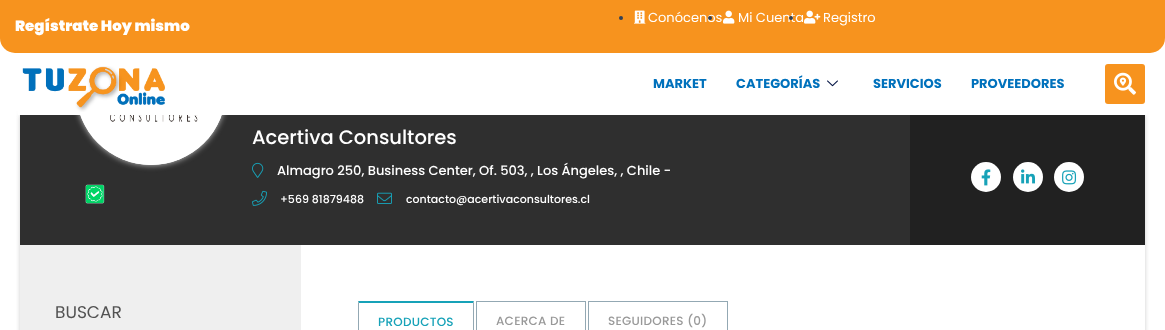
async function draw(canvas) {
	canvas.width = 1165;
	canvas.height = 330;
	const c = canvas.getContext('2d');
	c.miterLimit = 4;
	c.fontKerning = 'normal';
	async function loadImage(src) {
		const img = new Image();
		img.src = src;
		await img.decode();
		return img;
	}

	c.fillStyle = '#fff';
	c.fillRect(0, 0, 1165, 330);
	c.save();
	c.beginPath();
	c.moveTo(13, 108);
	c.lineTo(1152, 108);
	c.lineTo(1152, 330);
	c.lineTo(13, 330);
	c.closePath();
	c.moveTo(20, 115);
	c.lineTo(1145, 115);
	c.lineTo(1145, 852);
	c.lineTo(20, 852);
	c.closePath();
	c.clip('evenodd');
	c.fillStyle = '#ccc';
	c.filter = 'blur(2px)';
	c.beginPath();
	c.rect(20, 115, 1125, 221);
	c.fill();
	c.filter = 'none';
	c.restore();
	c.fillStyle = '#2f2f2f';
	c.fillRect(20, 115, 890, 130);
	c.fillStyle = '#ccc';
	c.filter = 'blur(3px)';
	c.beginPath();
	c.roundRect(76, 15, 150, 150, 75);
	c.fill();
	c.filter = 'none';
	c.fillStyle = '#fff';
	c.beginPath();
	c.arc(151, 90, 75, 0, 2 * Math.PI);
	c.fill();
	c.fillStyle = '#f7931e';
	c.beginPath();
	c.roundRect(0, 0, 1165, 53, [0, 0, 15, 15]);
	c.fill();
	c.font = '900 15px Poppins';
	c.fillStyle = '#fff';
	c.fillText('Regístrate Hoy mismo', 15, 31);
	c.fillStyle = '#334155';
	c.beginPath();
	c.arc(621, 18, 2, 0, 2 * Math.PI);
	c.fill();
	c.drawImage(await loadImage('img1.png'), 634, 10, 12, 14);
	c.font = '13px Poppins';
	c.fillStyle = '#fff';
	c.fillText('Conócenos', 648, 22);
	c.fillStyle = '#334155';
	c.beginPath();
	c.arc(710, 18, 2, 0, 2 * Math.PI);
	c.fill();
	c.drawImage(await loadImage('img2.png'), 723, 10, 12, 14);
	c.fillStyle = '#fff';
	c.fillText('Mi Cuenta', 738, 22);
	c.fillStyle = '#334155';
	c.beginPath();
	c.arc(791, 18, 2, 0, 2 * Math.PI);
	c.fill();
	c.drawImage(await loadImage('img3.png'), 804, 10, 17, 14);
	c.fillStyle = '#fff';
	c.fillText('Registro', 823, 22);
	c.fillRect(18, 53, 1129, 62);
	c.drawImage(await loadImage('img4.png'), 22, 66, 143, 46);
	c.font = 'bold 13px Poppins';
	c.fillStyle = '#0071bc';
	c.fillText('MARKET', 653, 88);
	c.fillText('CATEGORÍAS', 736, 88);
	c.drawImage(await loadImage('img5.png'), 827, 80, 11, 7);
	c.fillText('SERVICIOS', 873, 88);
	c.fillText('PROVEEDORES', 971, 88);
	c.fillStyle = '#f7931e';
	c.beginPath();
	c.roundRect(1105, 64, 40, 40, 3);
	c.fill();
	c.drawImage(await loadImage('img6.png'), 1114, 72, 22, 23);
	c.drawImage(await loadImage('img7.png'), 80, 115, 142, 50);
	c.font = '500 19.5px Poppins';
	c.fillStyle = '#fff';
	c.fillText('Acertiva Consultores', 252, 144);
	c.drawImage(await loadImage('img8.png'), 252, 162, 12, 16);
	c.font = '500 13px Poppins';
	c.fillText('Almagro 250, Business Center, Of. 503, , Los Ángeles, , Chile -', 277, 175);
	c.drawImage(await loadImage('img9.png'), 252, 190, 15, 16);
	c.font = '500 11px Poppins';
	c.fillText('+569 81879488', 280, 203);
	c.drawImage(await loadImage('img10.png'), 377, 192, 15, 12);
	c.fillText('contacto@acertivaconsultores.cl', 406, 203);
	c.drawImage(await loadImage('img11.png'), 85, 184, 20, 20);
	c.fillStyle = '#212121';
	c.fillRect(910, 115, 235, 130);
	c.fillStyle = '#fff';
	c.beginPath();
	c.arc(986, 177, 15, 0, 2 * Math.PI);
	c.fill();
	c.drawImage(await loadImage('img12.png'), 981, 169, 10, 17);
	c.beginPath();
	c.arc(1028, 177, 15, 0, 2 * Math.PI);
	c.fill();
	c.drawImage(await loadImage('img13.png'), 1021, 169, 14, 15);
	c.beginPath();
	c.arc(1069, 177, 15, 0, 2 * Math.PI);
	c.fill();
	c.drawImage(await loadImage('img14.png'), 1062, 170, 15, 15);
	c.fillStyle = '#efefef';
	c.fillRect(20, 245, 281, 85);
	c.font = '17px Poppins';
	c.fillStyle = '#525252';
	c.fillText('BUSCAR', 55, 318);
	c.fillStyle = '#17a2b8';
	c.beginPath();
	c.moveTo(358, 301);
	c.lineTo(474, 301);
	c.lineTo(473, 303);
	c.lineTo(359, 303);
	c.closePath();
	c.fill();
	c.fillStyle = '#93a8b3';
	c.beginPath();
	c.moveTo(474, 301);
	c.lineTo(474, 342);
	c.lineTo(473, 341);
	c.lineTo(473, 303);
	c.closePath();
	c.fill();
	c.beginPath();
	c.moveTo(358, 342);
	c.lineTo(358, 301);
	c.lineTo(359, 303);
	c.lineTo(359, 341);
	c.closePath();
	c.fill();
	c.letterSpacing = '0.25px';
	c.font = '500 12px Poppins';
	c.fillStyle = '#17a2b8';
	c.fillText('PRODUCTOS', 378, 326);
	c.fillStyle = '#93a8b3';
	c.fillRect(476, 301, 110, 1);
	c.beginPath();
	c.moveTo(586, 301);
	c.lineTo(586, 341);
	c.lineTo(585, 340);
	c.lineTo(585, 302);
	c.closePath();
	c.fill();
	c.beginPath();
	c.moveTo(476, 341);
	c.lineTo(476, 301);
	c.lineTo(477, 302);
	c.lineTo(477, 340);
	c.closePath();
	c.fill();
	c.fillStyle = '#999';
	c.fillText('ACERCA DE', 496, 325);
	c.fillStyle = '#93a8b3';
	c.fillRect(588, 301, 140, 1);
	c.beginPath();
	c.moveTo(728, 301);
	c.lineTo(728, 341);
	c.lineTo(727, 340);
	c.lineTo(727, 302);
	c.closePath();
	c.fill();
	c.beginPath();
	c.moveTo(588, 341);
	c.lineTo(588, 301);
	c.lineTo(589, 302);
	c.lineTo(589, 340);
	c.closePath();
	c.fill();
	c.fillStyle = '#999';
	c.fillText('SEGUIDORES (0)', 608, 325);
}

draw(document.querySelector('canvas'));
